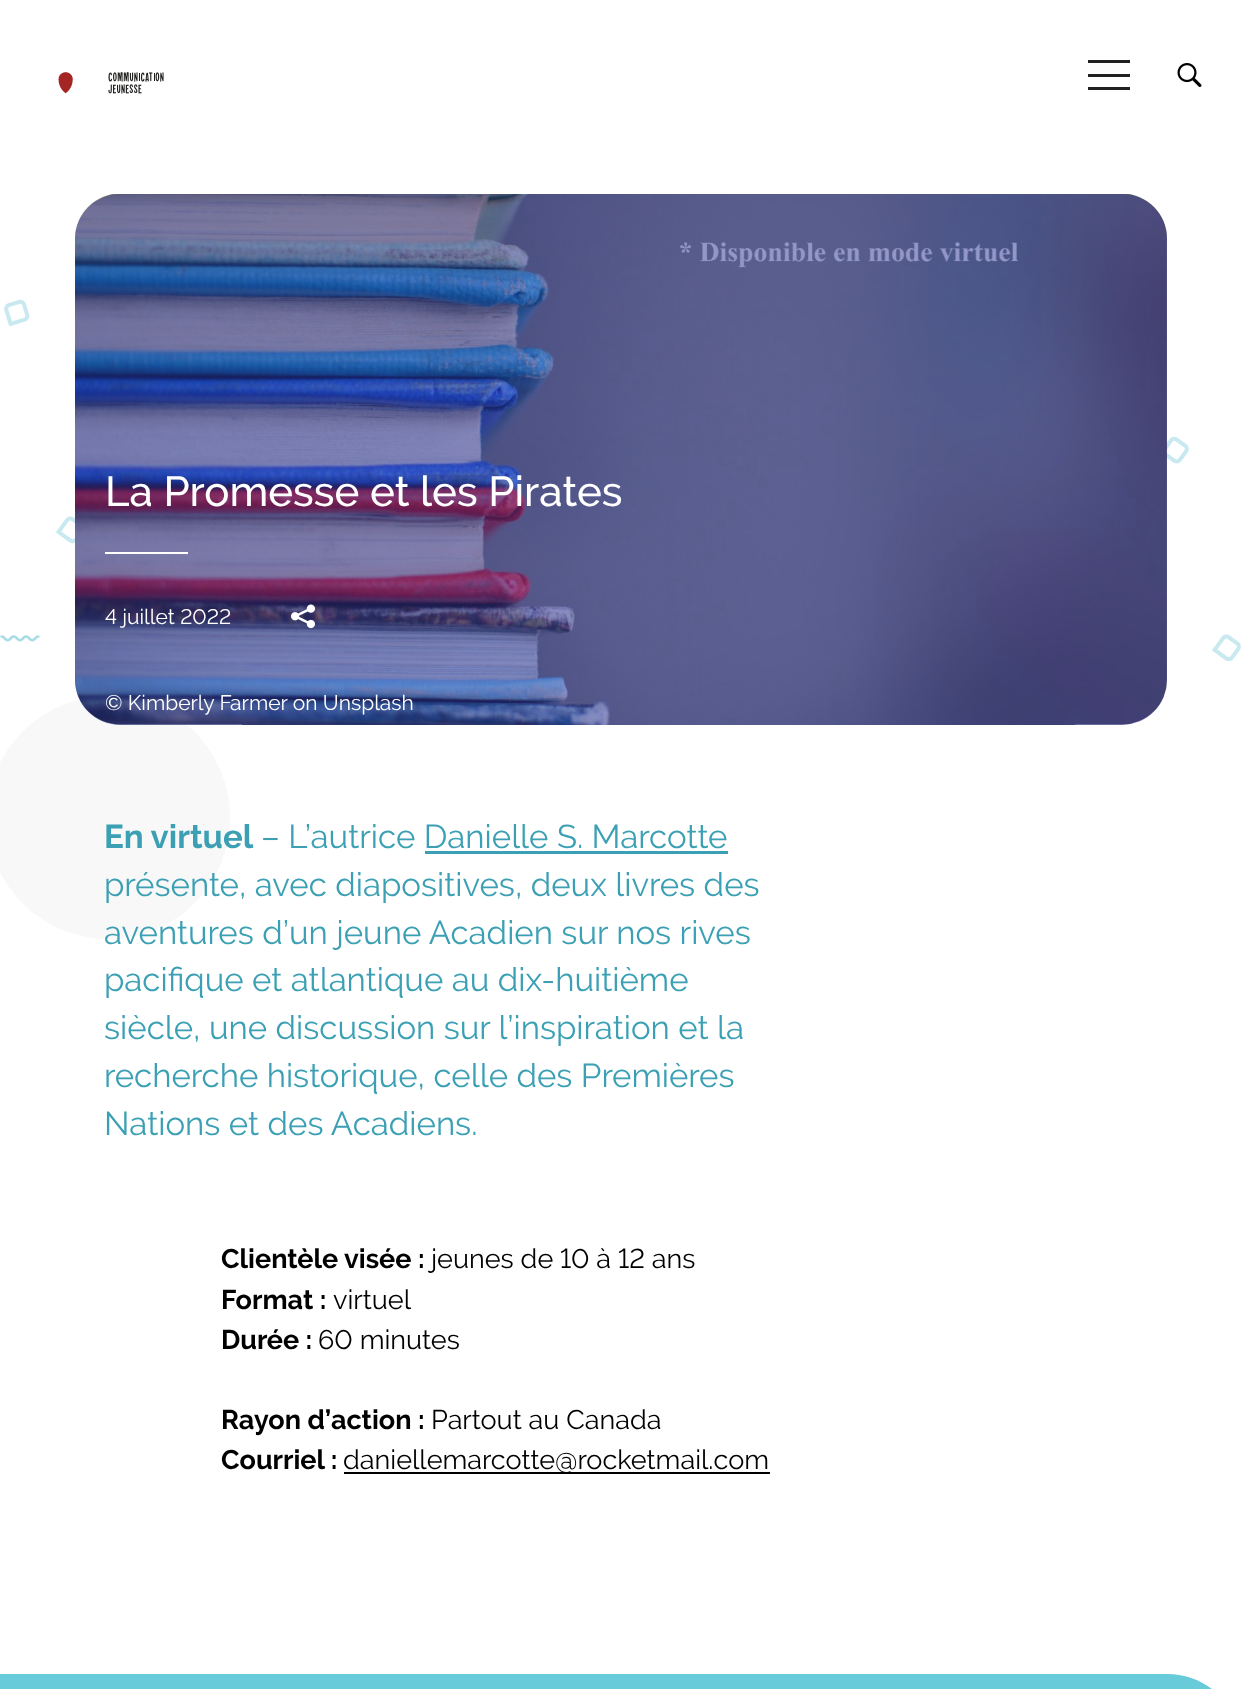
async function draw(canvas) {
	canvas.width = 1241;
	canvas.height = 1689;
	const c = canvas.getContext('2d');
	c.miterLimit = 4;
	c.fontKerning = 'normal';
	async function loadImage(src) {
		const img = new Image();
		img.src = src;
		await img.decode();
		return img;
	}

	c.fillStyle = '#fff';
	c.fillRect(0, 0, 1241, 1689);
	c.drawImage(await loadImage('img1.png'), 58, 72, 106, 22);
	for (const [x, y, w, h, color] of [
		[1088, 60, 42, 3, '#212121'],
		[1088, 74, 42, 3, '#212121'],
		[1088, 87, 42, 3, '#212121'],
	]) {
		c.fillStyle = color;
		c.fillRect(x, y, w, h);
	}
	c.drawImage(await loadImage('img2.png'), 1177, 63, 25, 24);
	c.drawImage(await loadImage('img3.png'), 0, 299, 1241, 363);
	c.fillStyle = '#f8f8f8';
	c.beginPath();
	c.arc(108.5, 817.5, 121.5, 0, 2 * Math.PI);
	c.fill();
	c.drawImage(await loadImage('img5.png'), 75, 194, 1092, 531);
	c.fillStyle = '#29319680';
	c.beginPath();
	c.roundRect(75, 194, 1092, 531, 45);
	c.fill();
	c.font = '500 42px Raleway';
	c.fillStyle = '#fff';
	c.fillText('La Promesse et les Pirates', 105, 506);
	c.fillRect(105, 552, 83, 2);
	c.font = '21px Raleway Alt';
	c.fillText('4 juillet 2022', 105, 624);
	c.drawImage(await loadImage('img4.png'), 291, 604, 24, 25);
	c.font = '21px Raleway';
	c.fillText('© Kimberly Farmer on Unsplash', 105, 710);
	c.font = 'bold 33px Raleway';
	c.fillStyle = '#3ba0b4';
	c.fillText('En virtuel', 104, 848);
	c.font = '33px Raleway';
	c.fillText('– L’autrice Danielle S. Marcotte', 261, 848);
	c.fillText('présente, avec diapositives, deux livres des', 104, 896);
	c.fillRect(425, 851, 303, 3);
	for (const [text, x, y] of [
		['aventures d’un jeune Acadien sur nos rives', 104, 944],
		['pacifique et atlantique au dix-huitième', 104, 991],
		['siècle, une discussion sur l’inspiration et la', 104, 1039],
		['recherche historique, celle des Premières', 104, 1087],
		['Nations et des Acadiens.', 104, 1135],
	]) {
		c.fillText(text, x, y);
	}
	c.font = 'bold 27px Raleway';
	c.fillStyle = '#000';
	c.fillText('Clientèle visée :', 221, 1268);
	c.font = '27px Raleway Alt';
	c.fillText('jeunes de 10 à 12 ans', 431, 1268);
	c.font = 'bold 27px Raleway';
	c.fillText('Format :', 221, 1309);
	c.font = '27px Raleway';
	c.fillText('virtuel', 333, 1309);
	c.font = 'bold 27px Raleway';
	c.fillText('Durée :', 221, 1349);
	c.font = '27px Raleway Alt';
	c.fillText('60 minutes', 318, 1349);
	c.font = 'bold 27px Raleway';
	c.fillText('Rayon d’action :', 221, 1429);
	c.font = '27px Raleway';
	c.fillText('Partout au Canada', 431, 1429);
	c.font = 'bold 27px Raleway';
	c.fillText('Courriel :', 221, 1469);
	c.fillRect(344, 1472, 426, 2);
	c.font = '27px Raleway';
	c.fillText('daniellemarcotte@rocketmail.com', 343, 1469);
	c.fillStyle = '#68cbda';
	c.beginPath();
	c.moveTo(0, 1674);
	c.lineTo(1167, 1674);
	c.bezierCurveTo(1208.5, 1674, 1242, 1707.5, 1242, 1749);
	c.lineTo(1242, 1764);
	c.lineTo(0, 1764);
	c.closePath();
	c.fill();
}

draw(document.querySelector('canvas'));
